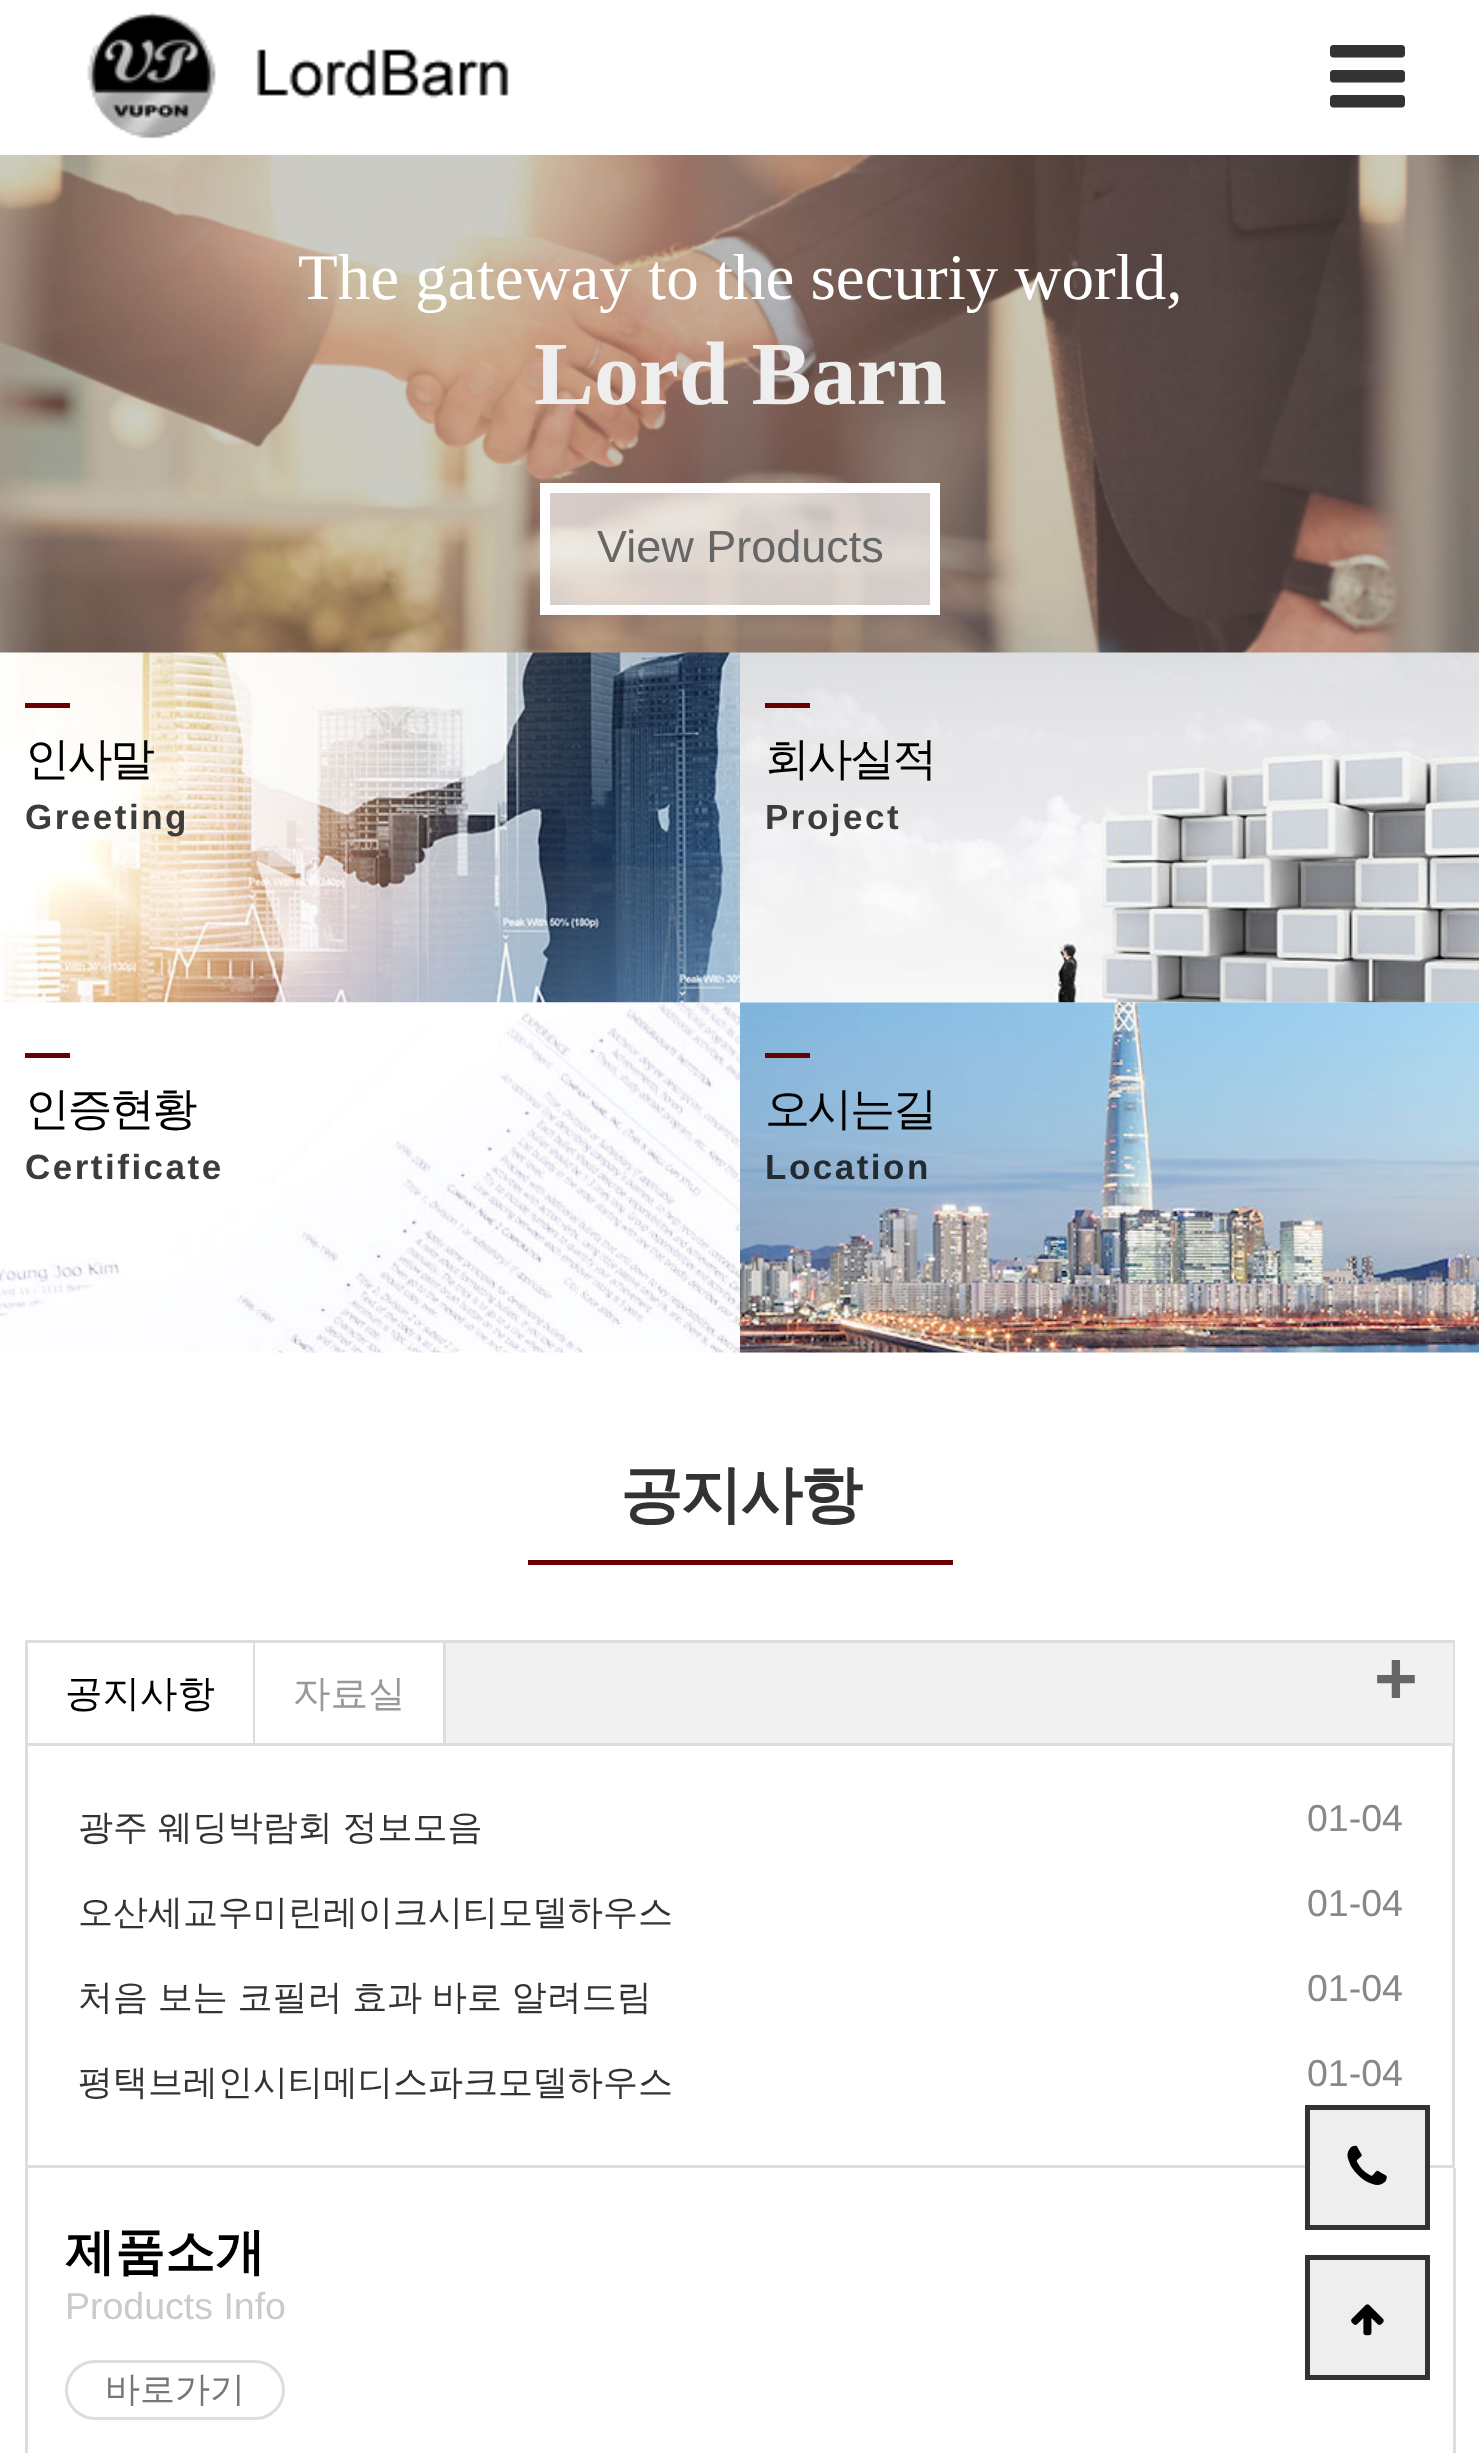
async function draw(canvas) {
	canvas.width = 1479;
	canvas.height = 2453;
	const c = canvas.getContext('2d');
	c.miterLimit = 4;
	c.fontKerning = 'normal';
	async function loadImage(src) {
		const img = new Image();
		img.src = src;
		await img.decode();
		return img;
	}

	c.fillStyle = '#fff';
	c.fillRect(0, 0, 1479, 2453);
	c.drawImage(await loadImage('img1.png'), 87, 12, 422, 127);
	c.drawImage(await loadImage('img2.png'), 1330, 45, 75, 63);
	c.drawImage(await loadImage('img3.png'), 0, 155, 1479, 498);
	c.font = '65px Liberation Serif';
	c.fillText('The gateway to the securiy world,', 298, 299);
	c.font = 'bold 90px Liberation Serif';
	c.fillStyle = '#eee';
	c.fillText('Lord Barn', 534, 404);
	c.fillStyle = '#ffffffa6';
	c.beginPath();
	c.rect(545, 488, 390, 122);
	c.fill();
	c.strokeStyle = '#fff';
	c.lineWidth = 10;
	c.stroke();
	c.font = '45px Liberation Sans';
	c.fillStyle = '#666';
	c.fillText('View Products', 597, 562);
	c.drawImage(await loadImage('img4.png'), 0, 652, 740, 351);
	c.fillStyle = '#680200';
	c.fillRect(25, 703, 45, 5);
	c.letterSpacing = '-2.5px';
	c.font = '500 45px WenQuanYi Zen Hei';
	c.fillStyle = '#000';
	c.fillText('인사말', 25, 774);
	c.letterSpacing = '2.5px';
	c.font = 'bold 35px Liberation Sans';
	c.fillStyle = '#3d3c3a';
	c.fillText('Greeting', 25, 829);
	c.drawImage(await loadImage('img5.png'), 740, 652, 739, 351);
	c.fillStyle = '#680200';
	c.fillRect(765, 703, 45, 5);
	c.letterSpacing = '-2.5px';
	c.font = '500 45px WenQuanYi Zen Hei';
	c.fillStyle = '#000';
	c.fillText('회사실적', 765, 774);
	c.letterSpacing = '2.5px';
	c.font = 'bold 35px Liberation Sans';
	c.fillStyle = '#3d3c3a';
	c.fillText('Project', 765, 829);
	c.drawImage(await loadImage('img6.png'), 0, 1002, 740, 351);
	c.fillStyle = '#680200';
	c.fillRect(25, 1053, 45, 5);
	c.letterSpacing = '-2.5px';
	c.font = '500 45px WenQuanYi Zen Hei';
	c.fillStyle = '#000';
	c.fillText('인증현황', 25, 1124);
	c.letterSpacing = '2.5px';
	c.font = 'bold 35px Liberation Sans';
	c.fillStyle = '#3d3c3a';
	c.fillText('Certificate', 25, 1179);
	c.drawImage(await loadImage('img7.png'), 740, 1002, 739, 351);
	c.fillStyle = '#680200';
	c.fillRect(765, 1053, 45, 5);
	c.letterSpacing = '-2.5px';
	c.font = '500 45px WenQuanYi Zen Hei';
	c.fillStyle = '#000';
	c.fillText('오시는길', 765, 1124);
	c.letterSpacing = '2.5px';
	c.font = 'bold 35px Liberation Sans';
	c.fillStyle = '#232b32';
	c.fillText('Location', 765, 1179);
	c.letterSpacing = '-2.5px';
	c.font = 'bold 62.5px WenQuanYi Zen Hei';
	c.fillStyle = '#333';
	c.fillText('공지사항', 620, 1516);
	c.fillStyle = '#680200';
	c.fillRect(528, 1560, 425, 5);
	c.strokeStyle = '#ddd';
	c.lineWidth = 3;
	c.strokeRect(26.5, 1641.5, 1427, 525);
	c.fillStyle = '#f1f1f1';
	c.fillRect(446, 1643, 1007, 100);
	c.letterSpacing = '0px';
	c.font = 'bold 75px Liberation Sans';
	c.fillStyle = '#666';
	c.fillText('+', 1374, 1704);
	c.wordSpacing = '-0.75px';
	c.font = '500 35px WenQuanYi Zen Hei';
	c.fillStyle = '#333';
	c.fillText('광주 웨딩박람회 정보모음', 78, 1839);
	c.wordSpacing = '0px';
	c.font = '37.5px Liberation Sans';
	c.fillStyle = '#888';
	c.fillText('01-04', 1307, 1831);
	c.font = '500 35px WenQuanYi Zen Hei';
	c.fillStyle = '#333';
	c.fillText('오산세교우미린레이크시티모델하우스', 78, 1924);
	c.font = '37.5px Liberation Sans';
	c.fillStyle = '#888';
	c.fillText('01-04', 1307, 1916);
	c.wordSpacing = '-0.75px';
	c.font = '500 35px WenQuanYi Zen Hei';
	c.fillStyle = '#333';
	c.fillText('처음 보는 코필러 효과 바로 알려드림', 78, 2009);
	c.wordSpacing = '0px';
	c.font = '37.5px Liberation Sans';
	c.fillStyle = '#888';
	c.fillText('01-04', 1307, 2001);
	c.font = '500 35px WenQuanYi Zen Hei';
	c.fillStyle = '#333';
	c.fillText('평택브레인시티메디스파크모델하우스', 78, 2094);
	c.font = '37.5px Liberation Sans';
	c.fillStyle = '#888';
	c.fillText('01-04', 1307, 2086);
	c.fillStyle = '#ddd';
	c.fillRect(28, 1743, 1425, 3);
	c.fillRect(253, 1643, 2, 100);
	c.font = '500 37.5px WenQuanYi Zen Hei';
	c.fillStyle = '#000';
	c.fillText('공지사항', 65, 1706);
	c.fillStyle = '#ddd';
	c.fillRect(443, 1643, 3, 100);
	c.fillStyle = '#999';
	c.fillText('자료실', 293, 1706);
	c.fillStyle = '#ddd';
	c.fillRect(1453, 2168, 3, 285);
	c.fillRect(25, 2168, 3, 285);
	c.font = 'bold 50px WenQuanYi Zen Hei';
	c.fillStyle = '#000';
	c.fillText('제품소개', 65, 2269);
	c.font = '37.5px Liberation Sans';
	c.fillStyle = '#cacaca';
	c.fillText('Products Info', 65, 2319);
	c.beginPath();
	c.roundRect(66.5, 2361.5, 217, 57, 28.5);
	c.stroke();
	c.font = '500 35px WenQuanYi Zen Hei';
	c.fillStyle = '#777';
	c.fillText('바로가기', 105, 2401);
	c.fillStyle = '#eee';
	c.beginPath();
	c.rect(1307.5, 2107.5, 120, 120);
	c.fill();
	c.strokeStyle = '#333';
	c.lineWidth = 5;
	c.stroke();
	c.drawImage(await loadImage('img8.png'), 1347, 2145, 40, 40);
	c.beginPath();
	c.rect(1307.5, 2257.5, 120, 120);
	c.fill();
	c.stroke();
	c.drawImage(await loadImage('img9.png'), 1351, 2304, 33, 32);
}

draw(document.querySelector('canvas'));
